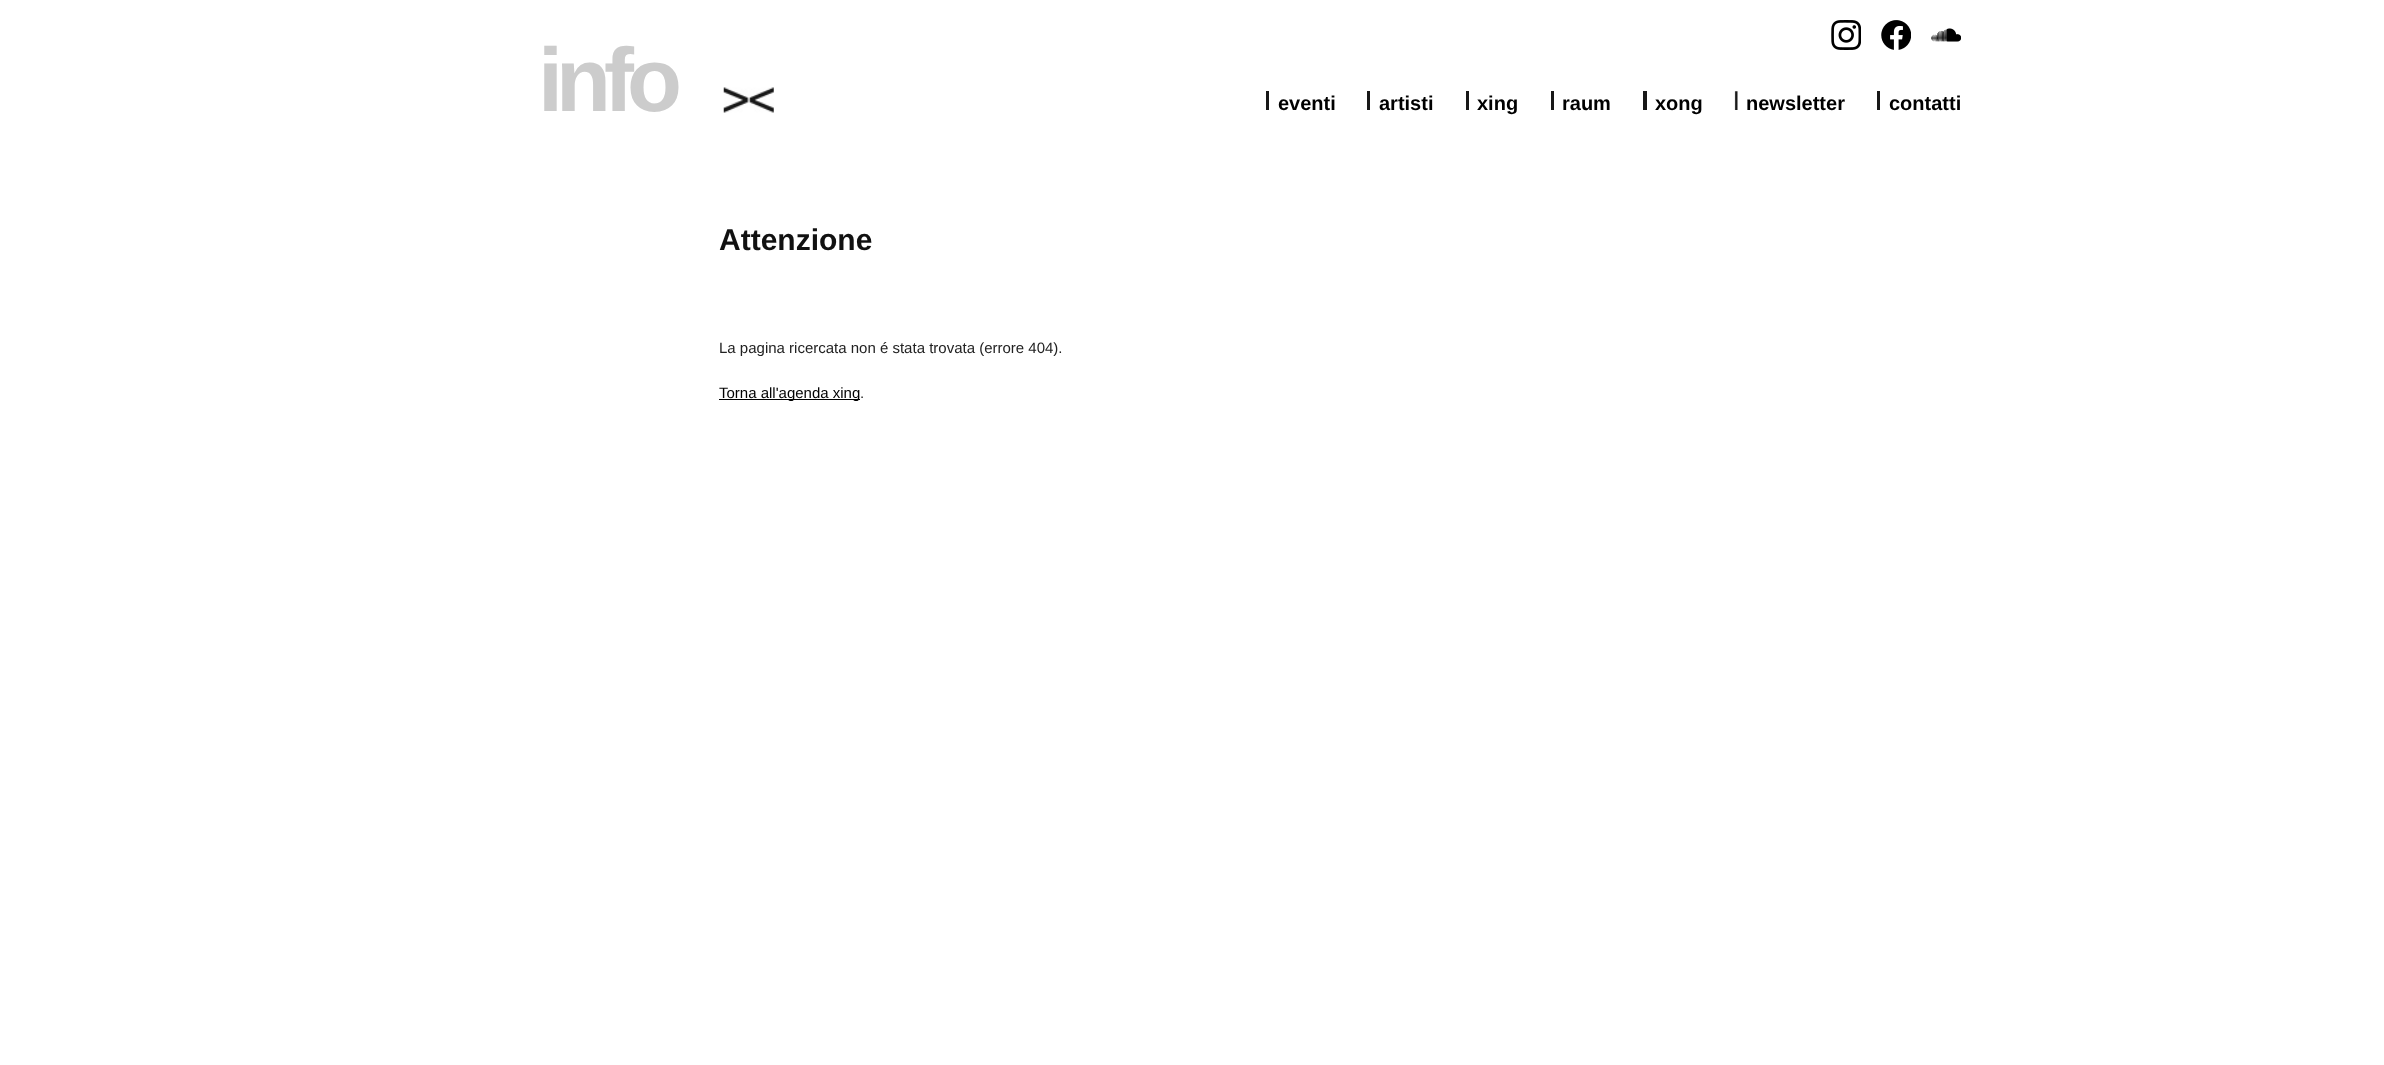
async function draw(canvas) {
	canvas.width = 2384;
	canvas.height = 1065;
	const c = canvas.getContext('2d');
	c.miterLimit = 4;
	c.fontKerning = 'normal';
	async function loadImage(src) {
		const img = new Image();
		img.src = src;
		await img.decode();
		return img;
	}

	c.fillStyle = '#fff';
	c.fillRect(0, 0, 2384, 1065);
	c.drawImage(await loadImage('img1.png'), 1831, 20, 30, 30);
	c.drawImage(await loadImage('img2.png'), 1881, 20, 30, 30);
	c.drawImage(await loadImage('img3.png'), 1931, 28, 30, 14);
	c.letterSpacing = '-7px';
	c.font = 'bold 90px Liberation Sans';
	c.fillStyle = '#ccc';
	c.fillText('info', 538, 111);
	c.drawImage(await loadImage('img4.png'), 723, 87, 51, 26);
	c.fillStyle = '#181818';
	c.fillRect(1266, 91, 3, 19);
	c.letterSpacing = '0px';
	c.font = 'bold 20px Liberation Sans';
	c.fillStyle = '#000';
	c.fillText('eventi', 1278, 110);
	c.fillStyle = '#181818';
	c.fillRect(1367, 91, 3, 19);
	c.fillStyle = '#000';
	c.fillText('artisti', 1379, 110);
	c.fillStyle = '#181818';
	c.fillRect(1466, 91, 3, 19);
	c.fillStyle = '#000';
	c.fillText('xing', 1477, 110);
	c.fillStyle = '#181818';
	c.fillRect(1551, 91, 3, 19);
	c.fillStyle = '#000';
	c.fillText('raum', 1562, 110);
	c.fillStyle = '#181818';
	c.fillRect(1643, 91, 4, 19);
	c.fillStyle = '#000';
	c.fillText('xong', 1655, 110);
	c.drawImage(await loadImage('img5.png'), 1734, 91, 4, 19);
	c.fillText('newsletter', 1746, 110);
	c.fillStyle = '#181818';
	c.fillRect(1877, 91, 3, 19);
	c.fillStyle = '#000';
	c.fillText('contatti', 1889, 110);
	c.font = 'bold 30px Liberation Sans';
	c.fillStyle = '#111';
	c.fillText('Attenzione', 719, 250);
	c.font = '15px Liberation Sans';
	c.fillStyle = '#222';
	c.fillText('La pagina ricercata non é stata trovata (errore 404).', 719, 353);
	c.fillStyle = '#000';
	c.fillRect(719, 399, 141, 1);
	c.fillText('Torna all\'agenda xing', 719, 398);
	c.fillStyle = '#222';
	c.fillText('.', 860, 398);
}

draw(document.querySelector('canvas'));
